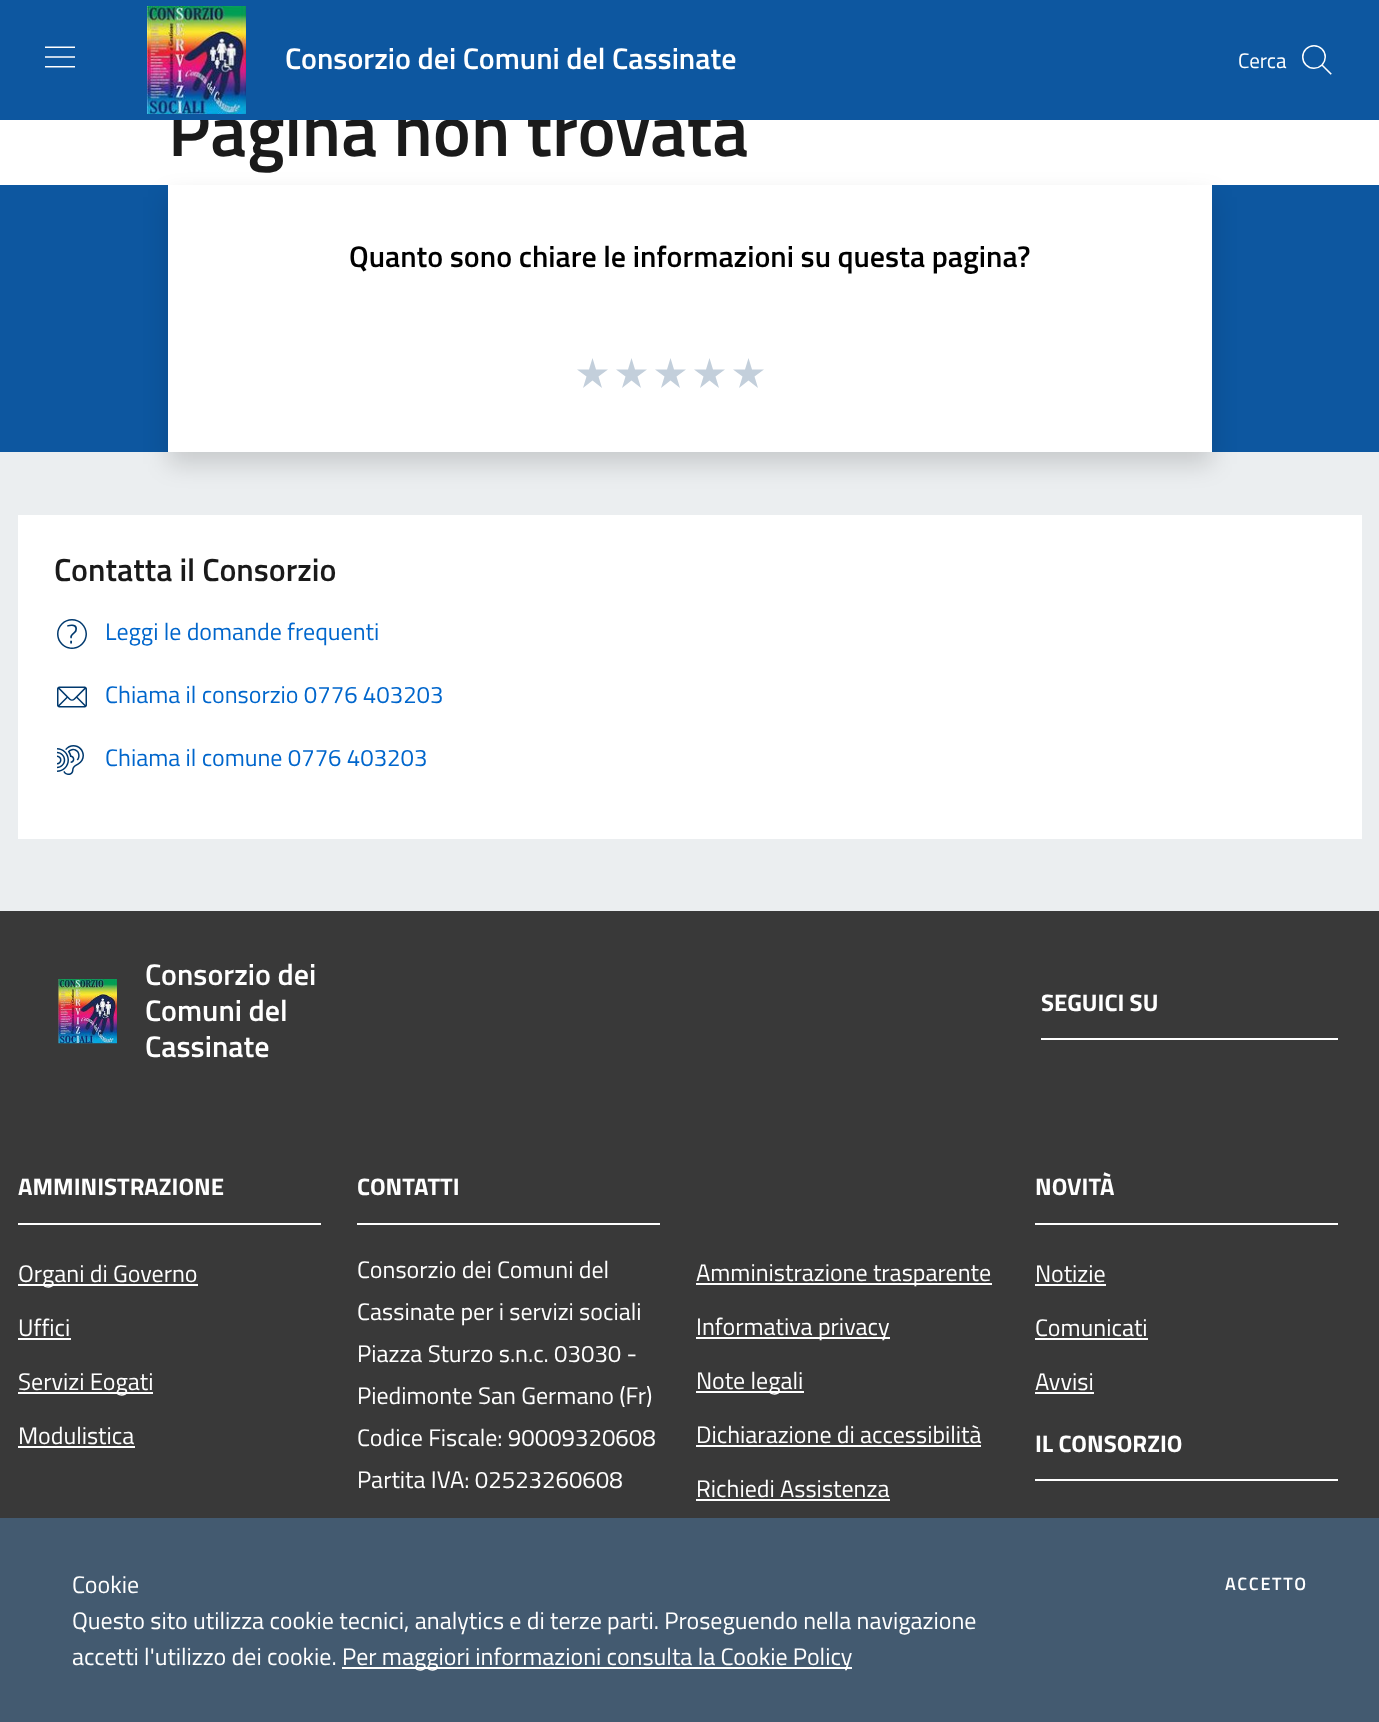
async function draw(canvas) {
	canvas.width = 1379;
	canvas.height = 1722;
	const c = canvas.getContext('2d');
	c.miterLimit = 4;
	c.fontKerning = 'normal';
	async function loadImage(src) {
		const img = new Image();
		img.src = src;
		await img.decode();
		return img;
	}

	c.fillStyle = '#fff';
	c.fillRect(0, 0, 1379, 1722);
	c.font = '600 72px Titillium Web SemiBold';
	c.fillStyle = '#1a1a1a';
	c.fillText('Pagina non trovata', 168, 156);
	c.fillStyle = '#0d57a0';
	c.fillRect(0, 0, 1379, 120);
	c.drawImage(await loadImage('img1.png'), 45, 46, 30, 22);
	c.drawImage(await loadImage('img2.png'), 147, 6, 99, 108);
	c.font = '600 30px Titillium Web SemiBold';
	c.fillStyle = '#fff';
	c.fillText('Consorzio dei Comuni del Cassinate', 285, 69);
	c.font = '21px Titillium Web';
	c.fillText('Cerca', 1238, 68);
	c.drawImage(await loadImage('img3.png'), 1302, 45, 30, 30);
	c.fillStyle = '#0d57a0';
	c.fillRect(0, 185, 1379, 267);
	c.fillStyle = '#ebeef0';
	c.fillRect(0, 452, 1379, 459);
	c.fillStyle = '#00000026';
	c.filter = 'blur(12px)';
	c.beginPath();
	c.rect(168, 197, 1044, 267);
	c.fill();
	c.filter = 'none';
	c.fillStyle = '#fff';
	c.fillRect(168, 185, 1044, 267);
	c.font = '600 30px Titillium Web SemiBold';
	c.fillStyle = '#000';
	c.fillText('Quanto sono chiare le informazioni su questa pagina?', 349, 267);
	c.fillStyle = '#c3cfdb';
	c.beginPath();
	c.moveTo(592.5, 358);
	c.lineTo(589, 369.5);
	c.lineTo(577, 369.5);
	c.lineTo(586.5, 376.5);
	c.lineTo(583, 388);
	c.lineTo(592.5, 380.5);
	c.lineTo(602, 388);
	c.lineTo(598.5, 376.5);
	c.lineTo(608, 369.5);
	c.lineTo(596, 369.5);
	c.closePath();
	c.fill();
	c.beginPath();
	c.moveTo(631.5, 358);
	c.lineTo(628, 369.5);
	c.lineTo(616, 369.5);
	c.lineTo(625.5, 376.5);
	c.lineTo(622, 388);
	c.lineTo(631.5, 380.5);
	c.lineTo(641, 388);
	c.lineTo(637.5, 376.5);
	c.lineTo(647, 369.5);
	c.lineTo(635, 369.5);
	c.closePath();
	c.fill();
	c.beginPath();
	c.moveTo(670.5, 358);
	c.lineTo(667, 369.5);
	c.lineTo(655, 369.5);
	c.lineTo(664.5, 376.5);
	c.lineTo(661, 388);
	c.lineTo(670.5, 380.5);
	c.lineTo(680, 388);
	c.lineTo(676.5, 376.5);
	c.lineTo(686, 369.5);
	c.lineTo(674, 369.5);
	c.closePath();
	c.fill();
	c.beginPath();
	c.moveTo(709.5, 358);
	c.lineTo(706, 369.5);
	c.lineTo(694, 369.5);
	c.lineTo(703.5, 376.5);
	c.lineTo(700, 388);
	c.lineTo(709.5, 380.5);
	c.lineTo(719, 388);
	c.lineTo(715.5, 376.5);
	c.lineTo(725, 369.5);
	c.lineTo(713, 369.5);
	c.closePath();
	c.fill();
	c.beginPath();
	c.moveTo(748.5, 358);
	c.lineTo(745, 369.5);
	c.lineTo(733, 369.5);
	c.lineTo(742.5, 376.5);
	c.lineTo(739, 388);
	c.lineTo(748.5, 380.5);
	c.lineTo(758, 388);
	c.lineTo(754.5, 376.5);
	c.lineTo(764, 369.5);
	c.lineTo(752, 369.5);
	c.closePath();
	c.fill();
	c.fillStyle = '#fff';
	c.fillRect(18, 515, 1344, 324);
	c.font = '600 32px Titillium Web SemiBold';
	c.fillStyle = '#1a1a1a';
	c.fillText('Contatta il Consorzio', 54, 581);
	c.drawImage(await loadImage('img4.png'), 57, 619, 30, 30);
	c.font = '24px Titillium Web';
	c.fillStyle = '#06c';
	c.fillText('Leggi le domande frequenti', 105, 640);
	c.drawImage(await loadImage('img5.png'), 57, 686, 30, 22);
	c.fillText('Chiama il consorzio 0776 403203', 105, 703);
	c.drawImage(await loadImage('img6.png'), 57, 745, 27, 30);
	c.fillText('Chiama il comune 0776 403203', 105, 766);
	c.fillStyle = '#393939';
	c.fillRect(0, 911, 1379, 607);
	c.drawImage(await loadImage('img7.png'), 58, 979, 59, 65);
	c.font = '600 30px Titillium Web SemiBold';
	c.fillStyle = '#fff';
	for (const [text, x, y] of [
		['Consorzio dei', 145, 985],
		['Comuni del', 145, 1021],
		['Cassinate', 145, 1057],
	]) {
		c.fillText(text, x, y);
	}
	c.fillRect(1041, 1038, 297, 2);
	c.font = 'bold 24px Titillium Web';
	c.fillText('SEGUICI SU', 1041, 1011);
	c.fillRect(18, 1223, 303, 2);
	c.fillText('AMMINISTRAZIONE', 18, 1195);
	c.fillRect(18, 1284, 180, 2);
	c.font = '24px Titillium Web';
	c.fillText('Organi di Governo', 18, 1282);
	c.fillText('Uffici', 18, 1336);
	c.fillRect(18, 1338, 53, 2);
	c.fillRect(18, 1392, 135, 2);
	c.fillText('Servizi Eogati', 18, 1390);
	c.fillText('Modulistica', 18, 1444);
	c.fillRect(18, 1446, 117, 2);
	c.fillRect(357, 1223, 303, 2);
	c.font = 'bold 24px Titillium Web';
	c.fillText('CONTATTI', 357, 1195);
	c.font = '24px Titillium Web';
	for (const [text, x, y] of [
		['Consorzio dei Comuni del', 357, 1278],
		['Cassinate per i servizi sociali', 357, 1320],
		['Piazza Sturzo s.n.c. 03030 -', 357, 1362],
		['Piedimonte San Germano (Fr)', 357, 1404],
		['Codice Fiscale: 90009320608', 357, 1446],
		['Partita IVA: 02523260608', 357, 1488],
	]) {
		c.fillText(text, x, y);
	}
	c.fillRect(696, 1283, 296, 2);
	c.fillText('Amministrazione trasparente', 696, 1281);
	c.fillRect(696, 1337, 194, 2);
	c.fillText('Informativa privacy', 696, 1335);
	c.fillRect(696, 1391, 108, 2);
	c.fillText('Note legali', 696, 1389);
	c.fillText('Dichiarazione di accessibilità', 696, 1443);
	c.fillRect(696, 1445, 285, 2);
	c.fillText('Richiedi Assistenza', 696, 1497);
	c.fillRect(696, 1499, 194, 2);
	c.fillRect(1035, 1223, 303, 2);
	c.font = 'bold 24px Titillium Web';
	c.fillText('NOVITÀ', 1035, 1195);
	c.font = '24px Titillium Web';
	c.fillText('Notizie', 1035, 1282);
	c.fillRect(1035, 1284, 71, 2);
	c.fillText('Comunicati', 1035, 1336);
	c.fillRect(1035, 1338, 113, 2);
	c.fillText('Avvisi', 1035, 1390);
	c.fillRect(1035, 1392, 59, 2);
	c.fillRect(1035, 1479, 303, 2);
	c.font = 'bold 24px Titillium Web';
	c.fillText('IL CONSORZIO', 1035, 1452);
	c.fillStyle = '#435a70';
	c.fillRect(0, 1518, 1379, 204);
	c.font = '24px Titillium Web';
	c.fillStyle = '#fff';
	for (const [text, x, y] of [
		['Cookie', 72, 1593],
		['Questo sito utilizza cookie tecnici, analytics e di terze parti. Proseguendo nella navigazione', 72, 1629],
		['accetti l\'utilizzo dei cookie.', 72, 1665],
	]) {
		c.fillText(text, x, y);
	}
	c.fillRect(342, 1667, 510, 2);
	c.fillText('Per maggiori informazioni consulta la Cookie Policy', 342, 1665);
	c.letterSpacing = '1.75px';
	c.font = '600 18px Titillium Web SemiBold';
	c.fillText('ACCETTO', 1225, 1590);
}

draw(document.querySelector('canvas'));
